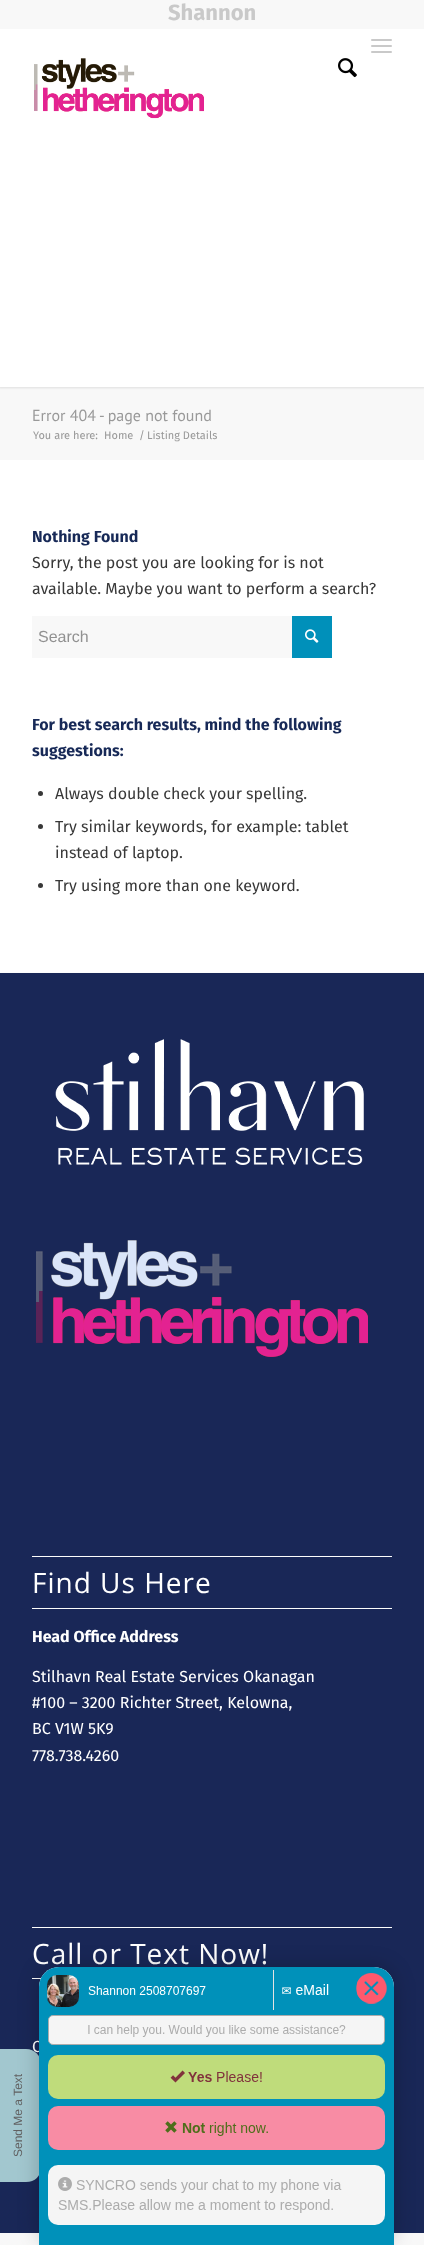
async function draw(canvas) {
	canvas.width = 424;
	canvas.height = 2245;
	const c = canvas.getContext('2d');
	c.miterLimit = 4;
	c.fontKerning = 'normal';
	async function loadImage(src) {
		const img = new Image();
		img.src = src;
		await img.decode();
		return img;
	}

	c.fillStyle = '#fff';
	c.fillRect(0, 0, 424, 2245);
	c.fillStyle = '#f8f8f8';
	c.fillRect(0, 387, 424, 73);
	c.fillStyle = '#0000001a';
	c.filter = 'blur(1px)';
	c.beginPath();
	c.rect(-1, -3, 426, 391);
	c.fill();
	c.filter = 'none';
	c.fillStyle = '#f8f8f8';
	c.fillRect(0, 0, 424, 29);
	c.font = 'bold 22px Fira Sans';
	c.fillStyle = '#c9c9c9';
	c.fillText('Shannon', 168, 20);
	c.fillStyle = '#fff';
	c.fillRect(0, 29, 424, 358);
	c.drawImage(await loadImage('img1.png'), 34, 58, 170, 61);
	c.fillStyle = '#c9c9c9';
	c.beginPath();
	c.roundRect(371, 45, 21, 2, 1);
	c.fill();
	c.beginPath();
	c.roundRect(371, 39, 21, 2, 1);
	c.fill();
	c.beginPath();
	c.roundRect(371, 51, 21, 2, 1);
	c.fill();
	c.drawImage(await loadImage('img2.png'), 338, 58, 19, 20);
	c.font = '16px PT Sans';
	c.fillStyle = '#999';
	c.fillText('Error 404 - page not found', 32, 421);
	c.font = '11px Fira Sans';
	for (const [text, x, y] of [
		['You are here:', 33, 439],
		['Home', 104, 439],
		['/', 139, 439],
		['Listing Details', 147, 439],
	]) {
		c.fillText(text, x, y);
	}
	c.font = 'bold 16px Fira Sans';
	c.fillStyle = '#172957';
	c.fillText('Nothing Found', 32, 542);
	c.font = '16px Fira Sans';
	c.fillStyle = '#383838';
	c.fillText('Sorry, the post you are looking for is not', 32, 568);
	c.fillText('available. Maybe you want to perform a search?', 32, 594);
	c.fillStyle = '#f8f8f8';
	c.fillRect(32, 616, 260, 42);
	c.font = '16px Liberation Sans';
	c.fillStyle = '#919191';
	c.fillText('Search', 38, 642);
	c.fillStyle = '#0090ba';
	c.fillRect(292, 616, 40, 42);
	c.drawImage(await loadImage('img3.png'), 305, 629, 14, 14);
	c.font = 'bold 16px Fira Sans';
	c.fillStyle = '#172957';
	c.fillText('For best search results, mind the following', 32, 730);
	c.fillText('suggestions:', 32, 756);
	c.fillStyle = '#383838';
	c.beginPath();
	c.arc(40.5, 793.5, 2.5, 0, 2 * Math.PI);
	c.fill();
	c.font = '16px Fira Sans';
	c.fillText('Always double check your spelling.', 55, 799);
	c.beginPath();
	c.arc(40.5, 826.5, 2.5, 0, 2 * Math.PI);
	c.fill();
	c.fillText('Try similar keywords, for example: tablet', 55, 832);
	c.fillText('instead of laptop.', 55, 858);
	c.beginPath();
	c.arc(40.5, 885.5, 2.5, 0, 2 * Math.PI);
	c.fill();
	c.fillText('Try using more than one keyword.', 55, 891);
	c.fillStyle = '#192757';
	c.fillRect(0, 973, 424, 1260);
	c.fillStyle = '#fcfcfc';
	c.fillRect(0, 972, 424, 1);
	c.drawImage(await loadImage('img4.png'), 55, 1039, 309, 126);
	c.drawImage(await loadImage('img5.png'), 36, 1240, 332, 117);
	c.fillRect(32, 1556, 360, 1);
	c.fillRect(32, 1608, 360, 1);
	c.letterSpacing = '1px';
	c.font = '28px Open Sans';
	c.fillStyle = '#fff';
	c.fillText('Find Us Here', 32, 1593);
	c.letterSpacing = '0px';
	c.font = 'bold 16px Fira Sans';
	c.fillText('Head Office Address', 32, 1642);
	c.font = '16px Fira Sans';
	for (const [text, x, y] of [
		['Stilhavn Real Estate Services Okanagan', 32, 1682],
		['#100 – 3200 Richter Street, Kelowna,', 32, 1708],
		['BC V1W 5K9', 32, 1734],
		['778.738.4260', 32, 1761],
	]) {
		c.fillText(text, x, y);
	}
	c.fillStyle = '#fcfcfc';
	c.fillRect(32, 1927, 360, 1);
	c.fillRect(32, 1978, 360, 1);
	c.letterSpacing = '1px';
	c.font = '28px Open Sans';
	c.fillStyle = '#fff';
	c.fillText('Call or Text Now!', 32, 1964);
	c.letterSpacing = '0px';
	c.font = '16px Fira Sans';
	c.fillText('C', 32, 2052);
	c.fillStyle = '#f8f8f8';
	c.fillRect(0, 2233, 424, 12);
	c.fillStyle = '#a2c7cf';
	c.beginPath();
	c.moveTo(0, 2182);
	c.lineTo(0, 2049);
	c.lineTo(26, 2049);
	c.bezierCurveTo(35, 2049, 41, 2056, 41, 2064);
	c.lineTo(41, 2167);
	c.bezierCurveTo(41, 2176, 35, 2182, 26, 2182);
	c.closePath();
	c.fill();
	c.fillStyle = '#00000033';
	c.filter = 'blur(10px)';
	c.beginPath();
	c.roundRect(38, 1966, 357, 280, 21);
	c.fill();
	c.filter = 'none';
	c.fillStyle = '#fff';
	c.beginPath();
	c.roundRect(39, 1967, 355, 278, [20, 20, 0, 0]);
	c.fill();
	c.drawImage(await loadImage('img6.png'), 39, 1967, 355, 278);
	c.font = '12px Liberation Sans';
	c.fillStyle = '#616061';
	c.save();
	c.translate(22, 2157);
	c.rotate(-90 * Math.PI / 180);
	c.fillText('Send Me a Text', 0, 0);
	c.restore();
}

draw(document.querySelector('canvas'));
